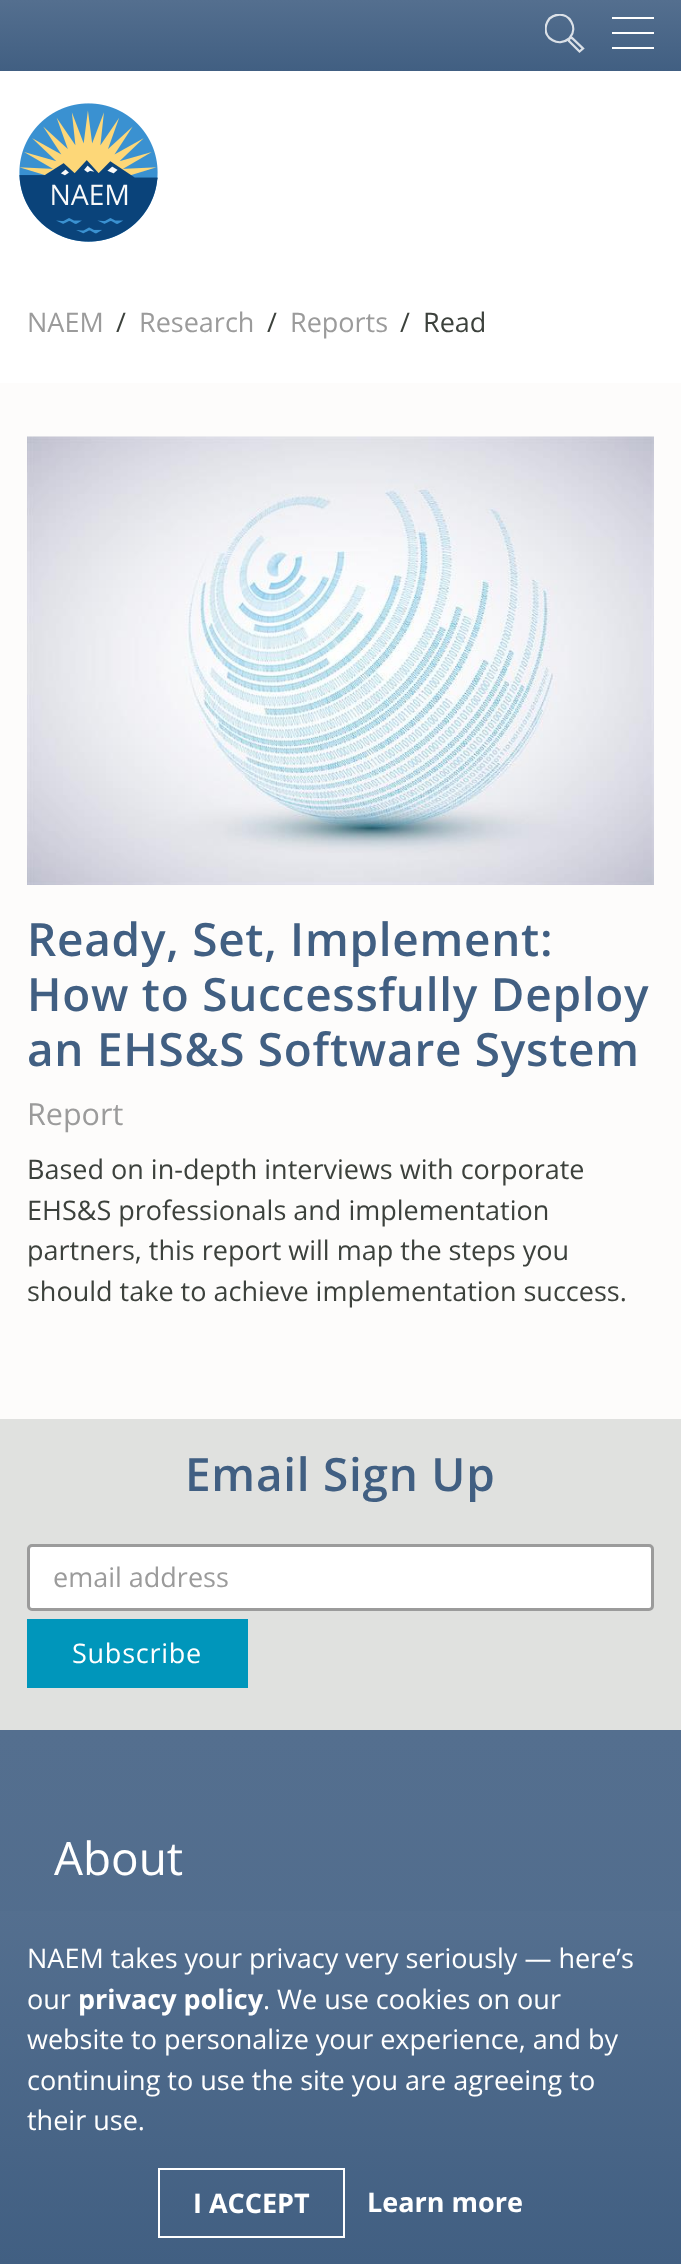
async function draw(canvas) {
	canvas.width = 681;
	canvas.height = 2264;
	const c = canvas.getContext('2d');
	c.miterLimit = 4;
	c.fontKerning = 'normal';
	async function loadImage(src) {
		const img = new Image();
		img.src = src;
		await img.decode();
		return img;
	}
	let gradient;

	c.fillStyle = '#fff';
	c.fillRect(0, 0, 681, 2264);
	gradient = c.createLinearGradient(341, 71, 341, 0);
	gradient.addColorStop(0, '#415f82');
	gradient.addColorStop(1, '#546f8f');
	c.fillStyle = gradient;
	c.fillRect(0, 0, 681, 71);
	c.save();
	c.beginPath();
	c.rect(545, 14, 40, 40);
	c.clip();
	c.beginPath();
	c.moveTo(570.5, 38);
	c.lineTo(570, 37.5);
	c.bezierCurveTo(578, 28, 570, 12.5, 556.5, 15);
	c.bezierCurveTo(554, 15.5, 551.5, 17, 549.5, 18.5);
	c.bezierCurveTo(548, 20.5, 546.5, 23, 546, 25.5);
	c.bezierCurveTo(543, 39, 559, 47, 568.5, 39);
	c.lineTo(569, 39.5);
	c.lineTo(569, 41);
	c.lineTo(579.5, 51.5);
	c.lineTo(583, 48.5);
	c.lineTo(572, 38);
	c.closePath();
	c.strokeStyle = '#ffffffcc';
	c.lineWidth = 2.3;
	c.stroke();
	c.restore();
	for (const [x, y, w, h, color] of [
		[612, 32, 42, 2, '#fff'],
		[612, 17, 42, 2, '#fff'],
		[612, 47, 42, 2, '#fff'],
	]) {
		c.fillStyle = color;
		c.fillRect(x, y, w, h);
	}
	c.drawImage(await loadImage('img1.png'), 19, 103, 139, 139);
	c.font = '27px Open Sans';
	c.fillStyle = '#9b9b9b';
	c.fillText('NAEM', 27, 332);
	c.fillStyle = '#3c413c';
	c.fillText('/', 116, 332);
	c.fillStyle = '#9b9b9b';
	c.fillText('Research', 139, 332);
	c.fillStyle = '#3c413c';
	c.fillText('/', 267, 332);
	c.fillStyle = '#9b9b9b';
	c.fillText('Reports', 290, 332);
	c.fillStyle = '#3c413c';
	c.fillText('/', 400, 332);
	c.fillText('Read', 423, 332);
	c.fillStyle = '#fdfcfb';
	c.fillRect(0, 383, 681, 1036);
	c.drawImage(await loadImage('img2.png'), 27, 436, 627, 449);
	c.letterSpacing = '0.75px';
	c.font = '600 45.9px Open Sans';
	c.fillStyle = '#415f82';
	for (const [text, x, y] of [
		['Ready, Set, Implement:', 27, 956],
		['How to Successfully Deploy', 27, 1011],
		['an EHS&S Software System', 27, 1066],
	]) {
		c.fillText(text, x, y);
	}
	c.letterSpacing = '0px';
	c.font = '30.5px Open Sans';
	c.fillStyle = '#9b9b9b';
	c.fillText('Report', 27, 1125);
	c.font = '27px Open Sans';
	c.fillStyle = '#3c413c';
	for (const [text, x, y] of [
		['Based on in-depth interviews with corporate', 27, 1179],
		['EHS&S professionals and implementation', 27, 1220],
		['partners, this report will map the steps you', 27, 1260],
		['should take to achieve implementation success.', 27, 1301],
	]) {
		c.fillText(text, x, y);
	}
	c.fillStyle = '#e0e1df';
	c.fillRect(0, 1419, 681, 311);
	c.letterSpacing = '0.75px';
	c.font = '600 45.9px Open Sans';
	c.fillStyle = '#415f82';
	c.fillText('Email Sign Up', 185, 1491);
	c.fillStyle = '#fff';
	c.beginPath();
	c.roundRect(28.5, 1545.5, 624, 64, 3.5);
	c.fill();
	c.strokeStyle = '#9b9b9b';
	c.lineWidth = 3;
	c.stroke();
	c.letterSpacing = '0px';
	c.font = '27px Open Sans';
	c.fillStyle = '#9b9b9b';
	c.fillText('email address', 53, 1587);
	c.fillStyle = '#0096bb';
	c.fillRect(27, 1619, 221, 69);
	c.letterSpacing = '0.75px';
	c.fillStyle = '#fff';
	c.fillText('Subscribe', 72, 1663);
	gradient = c.createLinearGradient(341, 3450, 341, 1730);
	gradient.addColorStop(0, '#415f82');
	gradient.addColorStop(1, '#546f8f');
	c.fillStyle = gradient;
	c.fillRect(0, 1730, 681, 181);
	c.letterSpacing = '0px';
	c.font = '45.9px Open Sans';
	c.fillStyle = '#fff';
	c.fillText('About', 54, 1875);
	gradient = c.createLinearGradient(341, 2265, 341, 1911);
	gradient.addColorStop(0, '#415f82');
	gradient.addColorStop(1, '#546f8f');
	c.fillStyle = gradient;
	c.fillRect(0, 1911, 681, 353);
	c.font = '27px Open Sans';
	c.fillStyle = '#fff';
	c.fillText('NAEM takes your privacy very seriously — here’s', 27, 1968);
	c.fillText('our', 27, 2009);
	c.font = 'bold 27px Open Sans';
	c.fillText('privacy policy', 78, 2009);
	c.font = '27px Open Sans';
	for (const [text, x, y] of [
		['. We use cookies on our', 263, 2009],
		['website to personalize your experience, and by', 27, 2049],
		['continuing to use the site you are agreeing to', 27, 2090],
		['their use.', 27, 2130],
	]) {
		c.fillText(text, x, y);
	}
	c.strokeStyle = '#fff';
	c.lineWidth = 2;
	c.strokeRect(159, 2169, 185, 68);
	c.font = 'bold 27px Open Sans';
	c.fillText('I ACCEPT', 193, 2213);
	c.fillText('Learn more', 367, 2212);
}

draw(document.querySelector('canvas'));
